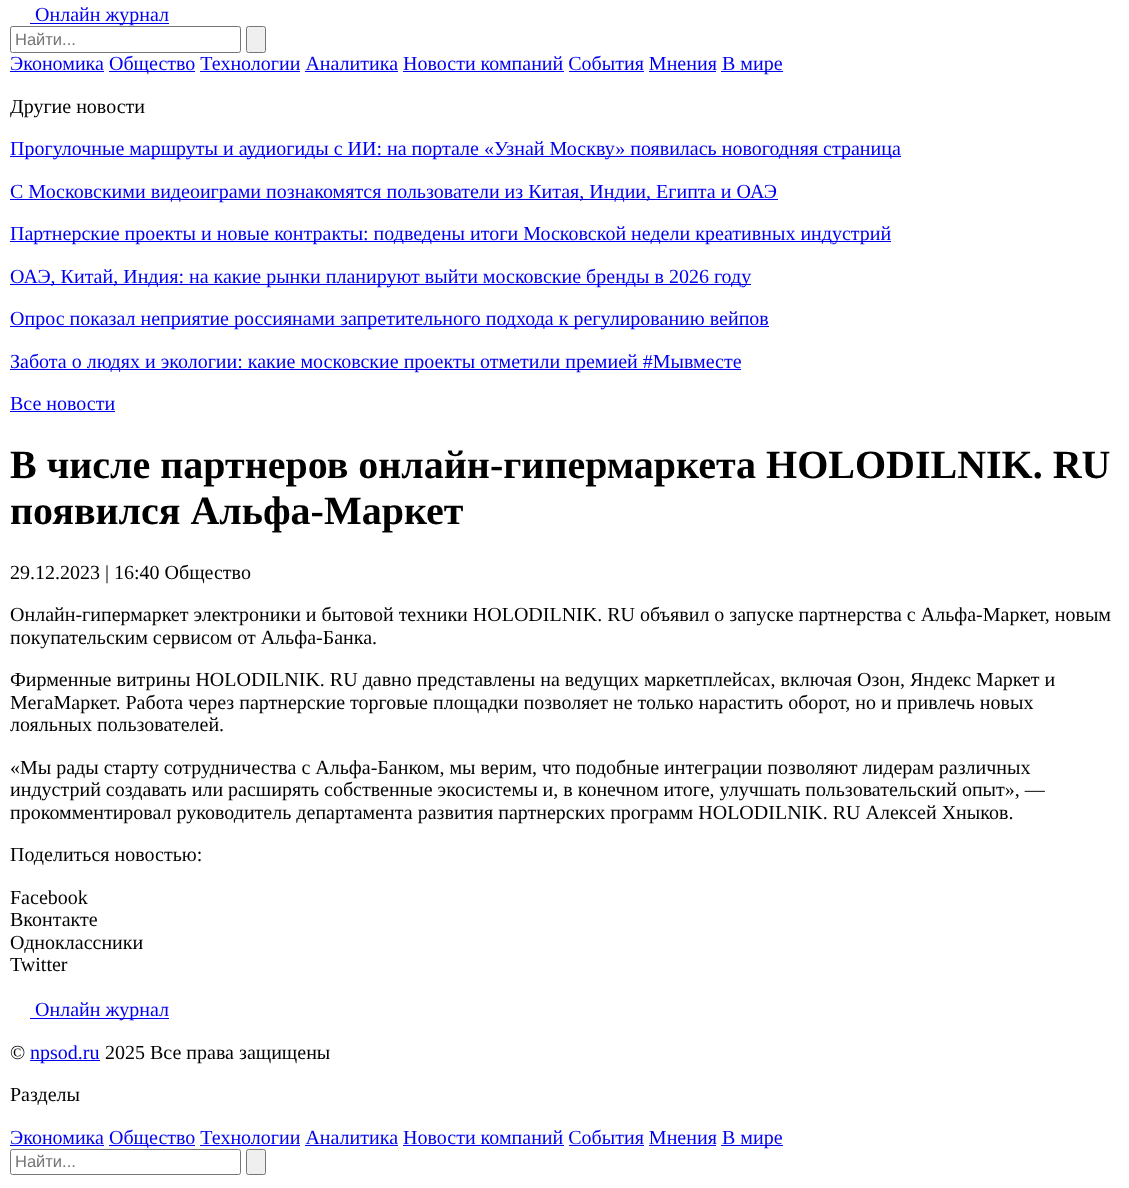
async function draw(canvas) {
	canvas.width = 1129;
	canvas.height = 1188;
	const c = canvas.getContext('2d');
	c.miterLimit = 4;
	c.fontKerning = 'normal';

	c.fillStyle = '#fff';
	c.fillRect(0, 0, 1129, 1188);
	c.fillStyle = '#00e';
	c.fillRect(30, 23, 139, 1);
	c.font = '20px Liberation Serif';
	c.fillText('Онлайн журнал', 35, 21);
	c.beginPath();
	c.roundRect(10.5, 26.5, 230, 26, 2);
	c.strokeStyle = '#767676';
	c.stroke();
	c.font = '16.5px Liberation Sans';
	c.fillStyle = '#757575';
	c.fillText('Найти...', 15, 45);
	c.fillStyle = '#efefef';
	c.beginPath();
	c.roundRect(246.5, 26.5, 19, 26, 2);
	c.fill();
	c.stroke();
	c.font = '20px Liberation Serif';
	c.fillStyle = '#00e';
	c.fillText('Экономика', 10, 70);
	c.fillRect(10, 71, 94, 1);
	c.fillRect(109, 71, 86, 1);
	c.fillText('Общество Технологии Аналитика Новости компаний События Мнения', 109, 70);
	c.fillRect(721, 71, 62, 1);
	c.fillText('В мире', 722, 70);
	for (const [x, y, w, h, color] of [
		[200, 71, 100, 1, '#00e'],
		[305, 71, 93, 1, '#00e'],
		[403, 71, 161, 1, '#00e'],
		[569, 71, 75, 1, '#00e'],
		[649, 71, 67, 1, '#00e'],
	]) {
		c.fillStyle = color;
		c.fillRect(x, y, w, h);
	}
	c.fillStyle = '#000';
	c.fillText('Другие новости', 10, 113);
	c.fillStyle = '#00e';
	c.fillRect(10, 156, 891, 1);
	c.fillText('Прогулочные маршруты и аудиогиды с ИИ: на портале «Узнай Москву» появилась новогодняя страница', 10, 155);
	c.fillRect(10, 199, 768, 1);
	c.fillText('С Московскими видеоиграми познакомятся пользователи из Китая, Индии, Египта и ОАЭ', 10, 198);
	c.fillRect(10, 241, 881, 1);
	c.fillText('Партнерские проекты и новые контракты: подведены итоги Московской недели креативных индустрий', 10, 240);
	c.fillRect(10, 284, 741, 1);
	c.fillText('ОАЭ, Китай, Индия: на какие рынки планируют выйти московские бренды в 2026 году', 10, 283);
	c.fillRect(10, 326, 759, 1);
	c.fillText('Опрос показал неприятие россиянами запретительного подхода к регулированию вейпов', 10, 325);
	c.fillRect(10, 369, 731, 1);
	c.fillText('Забота о людях и экологии: какие московские проекты отметили премией #Мывместе', 10, 368);
	c.fillText('Все новости', 10, 410);
	c.fillRect(10, 411, 105, 1);
	c.font = 'bold 40px Liberation Serif';
	c.fillStyle = '#000';
	c.fillText('В числе партнеров онлайн-гипермаркета HOLODILNIK. RU', 10, 478);
	c.fillText('появился Альфа-Маркет', 10, 524);
	c.font = '20px Liberation Serif';
	for (const [text, x, y] of [
		['29.12.2023 | 16:40 Общество', 10, 579],
		['Онлайн-гипермаркет электроники и бытовой техники HOLODILNIK. RU объявил о запуске партнерства с Альфа-Маркет, новым', 10, 621],
		['покупательским сервисом от Альфа-Банка.', 10, 644],
		['Фирменные витрины HOLODILNIK. RU давно представлены на ведущих маркетплейсах, включая Озон, Яндекс Маркет и', 10, 686],
		['МегаМаркет. Работа через партнерские торговые площадки позволяет не только нарастить оборот, но и привлечь новых', 10, 709],
		['лояльных пользователей.', 10, 731],
		['«Мы рады старту сотрудничества с Альфа-Банком, мы верим, что подобные интеграции позволяют лидерам различных', 10, 774],
		['индустрий создавать или расширять собственные экосистемы и, в конечном итоге, улучшать пользовательский опыт», —', 10, 796],
		['прокомментировал руководитель департамента развития партнерских программ HOLODILNIK. RU Алексей Хныков.', 10, 819],
		['Поделиться новостью:', 10, 861],
		['Facebook', 10, 904],
		['Вконтакте', 10, 926],
		['Одноклассники', 10, 949],
		['Twitter', 10, 971],
	]) {
		c.fillText(text, x, y);
	}
	c.fillStyle = '#00e';
	c.fillRect(30, 1018, 139, 1);
	c.fillText('Онлайн журнал', 35, 1016);
	c.fillStyle = '#000';
	c.fillText('©', 10, 1059);
	c.fillStyle = '#00e';
	c.fillRect(30, 1060, 70, 1);
	c.fillText('npsod.ru', 30, 1059);
	c.fillStyle = '#000';
	c.fillText('2025 Все права защищены', 105, 1059);
	c.fillText('Разделы', 10, 1101);
	c.fillStyle = '#00e';
	c.fillText('Экономика', 10, 1144);
	c.fillRect(10, 1145, 94, 1);
	c.fillRect(109, 1145, 86, 1);
	c.fillText('Общество Технологии Аналитика Новости компаний События Мнения', 109, 1144);
	c.fillRect(721, 1145, 62, 1);
	c.fillText('В мире', 722, 1144);
	for (const [x, y, w, h, color] of [
		[200, 1145, 100, 1, '#00e'],
		[305, 1145, 93, 1, '#00e'],
		[403, 1145, 161, 1, '#00e'],
		[569, 1145, 75, 1, '#00e'],
		[649, 1145, 67, 1, '#00e'],
	]) {
		c.fillStyle = color;
		c.fillRect(x, y, w, h);
	}
	c.beginPath();
	c.roundRect(10.5, 1149.5, 230, 25, 2);
	c.stroke();
	c.font = '16.5px Liberation Sans';
	c.fillStyle = '#757575';
	c.fillText('Найти...', 15, 1167);
	c.fillStyle = '#efefef';
	c.beginPath();
	c.roundRect(246.5, 1149.5, 19, 25, 2);
	c.fill();
	c.stroke();
}

draw(document.querySelector('canvas'));
